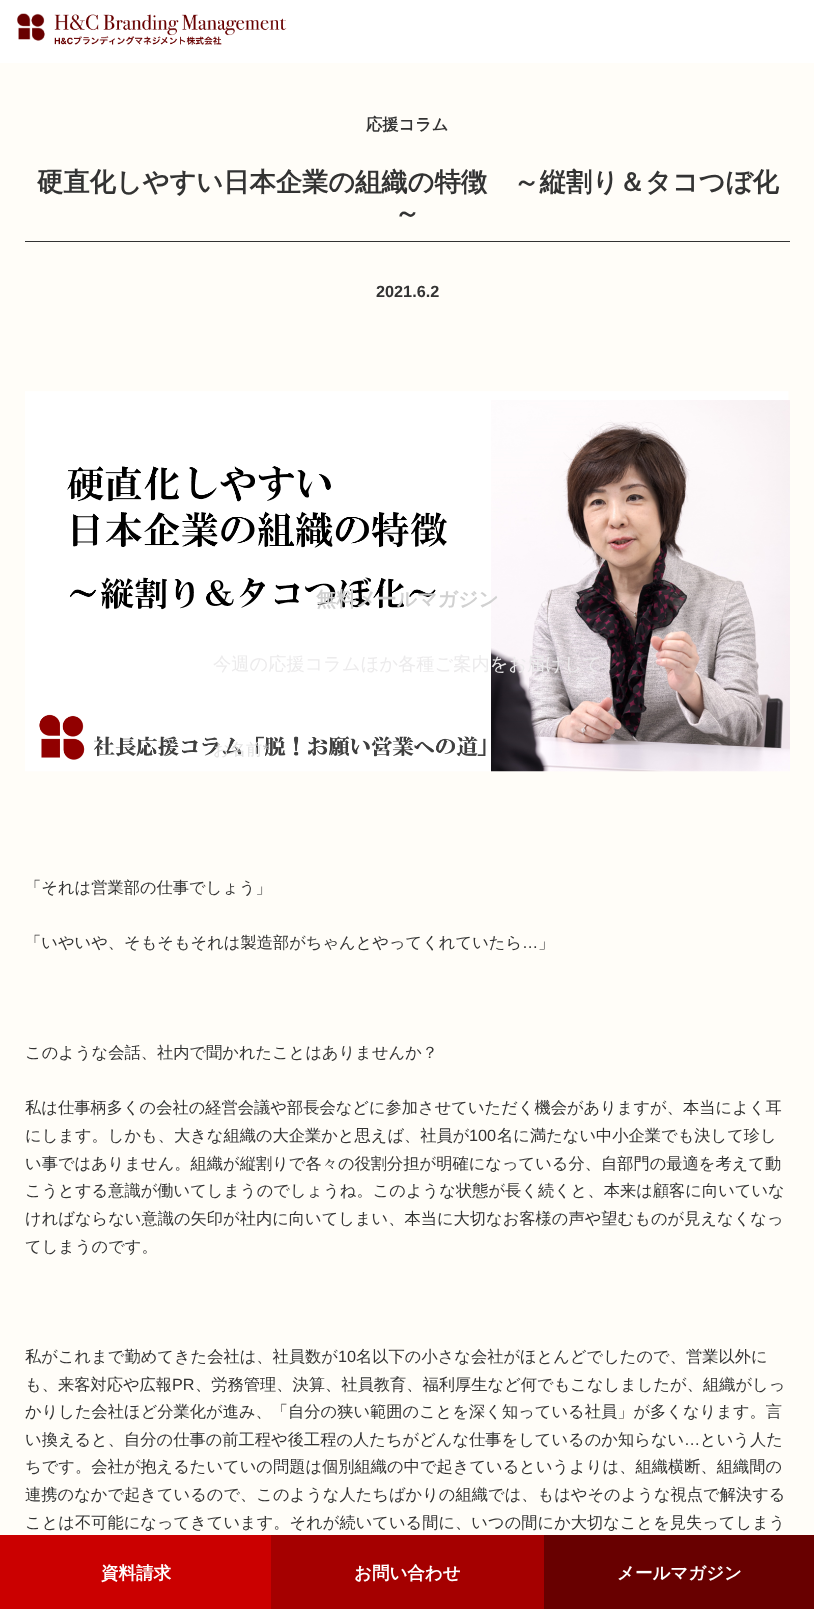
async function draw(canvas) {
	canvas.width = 814;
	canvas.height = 1609;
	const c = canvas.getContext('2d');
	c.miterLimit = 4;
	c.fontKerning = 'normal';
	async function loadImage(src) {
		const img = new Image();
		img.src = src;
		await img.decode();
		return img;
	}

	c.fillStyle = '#fffdf8';
	c.fillRect(0, 0, 814, 1609);
	c.font = 'bold 16.25px WenQuanYi Zen Hei';
	c.fillStyle = '#333';
	c.fillText('応援コラム', 366, 130);
	c.fillRect(25, 241, 765, 1);
	c.font = 'bold 26.25px WenQuanYi Zen Hei';
	c.fillText('硬直化しやすい日本企業の組織の特徴　～縦割り＆タコつぼ化', 37, 191);
	c.fillText('～', 394, 222);
	c.font = 'bold 16.25px Liberation Sans';
	c.fillText('2021.6.2', 376, 297);
	c.drawImage(await loadImage('img1.png'), 25, 391, 765, 381);
	c.font = '500 16.25px WenQuanYi Zen Hei';
	c.fillText('「それは営業部の仕事でしょう」', 25, 893);
	c.fillText('「いやいや、そもそもそれは製造部がちゃんとやってくれていたら', 25, 948);
	c.font = '16.25px Liberation Sans';
	c.fillText('…', 522, 948);
	c.font = '500 16.25px WenQuanYi Zen Hei';
	for (const [text, x, y] of [
		['」', 538, 948],
		['このような会話、社内で聞かれたことはありませんか？', 25, 1058],
		['私は仕事柄多くの会社の経営会議や部長会などに参加させていただく機会がありますが、本当によく耳', 25, 1113],
		['にします。しかも、大きな組織の大企業かと思えば、社員が', 25, 1141],
	]) {
		c.fillText(text, x, y);
	}
	c.font = '16.25px Liberation Sans';
	c.fillText('100', 469, 1141);
	c.font = '500 16.25px WenQuanYi Zen Hei';
	for (const [text, x, y] of [
		['名に満たない中小企業でも決して珍し', 497, 1141],
		['い事ではありません。組織が縦割りで各々の役割分担が明確になっている分、自部門の最適を考えて動', 25, 1169],
		['こうとする意識が働いてしまうのでしょうね。このような状態が長く続くと、本来は顧客に向いていな', 25, 1196],
		['ければならない意識の矢印が社内に向いてしまい、本当に大切なお客様の声や望むものが見えなくなっ', 25, 1224],
		['てしまうのです。', 25, 1252],
		['私がこれまで勤めてきた会社は、社員数が', 25, 1362],
	]) {
		c.fillText(text, x, y);
	}
	c.font = '16.25px Liberation Sans';
	c.fillText('10', 338, 1362);
	c.font = '500 16.25px WenQuanYi Zen Hei';
	c.fillText('名以下の小さな会社がほとんどでしたので、営業以外に', 356, 1362);
	c.fillText('も、来客対応や広報', 25, 1390);
	c.font = '16.25px Liberation Sans';
	c.fillText('PR', 172, 1390);
	c.font = '500 16.25px WenQuanYi Zen Hei';
	for (const [text, x, y] of [
		['、労務管理、決算、社員教育、福利厚生など何でもこなしましたが、組織がしっ', 195, 1390],
		['かりした会社ほど分業化が進み、「自分の狭い範囲のことを深く知っている社員」が多くなります。言', 25, 1417],
		['い換えると、自分の仕事の前工程や後工程の人たちがどんな仕事をしているのか知らない', 25, 1445],
	]) {
		c.fillText(text, x, y);
	}
	c.font = '16.25px Liberation Sans';
	c.fillText('…', 684, 1445);
	c.font = '500 16.25px WenQuanYi Zen Hei';
	for (const [text, x, y] of [
		['という人た', 700, 1445],
		['ちです。会社が抱えるたいていの問題は個別組織の中で起きているというよりは、組織横断、組織間の', 25, 1472],
		['連携のなかで起きているので、このような人たちばかりの組織では、もはやそのような視点で解決する', 25, 1500],
		['ことは不可能になってきています。それが続いている間に、いつの間にか大切なことを見失ってしまう', 25, 1528],
	]) {
		c.fillText(text, x, y);
	}
	c.font = 'bold 20px WenQuanYi Zen Hei';
	c.fillStyle = '#d1d1d1';
	c.fillText('無料メールマガジン', 316, 606);
	c.font = '500 18.25px WenQuanYi Zen Hei';
	c.fillStyle = '#ecebec';
	c.fillText('今週の応援コラムほか各種ご案内をお届けして', 213, 670);
	c.font = '500 16.25px WenQuanYi Zen Hei';
	c.fillStyle = '#e2e2e2';
	c.fillText('お名前', 213, 755);
	c.font = 'italic 16.25px Liberation Sans';
	c.fillStyle = '#bababa';
	c.fillText('*', 262, 755);
	c.fillStyle = '#fff';
	c.fillRect(0, 0, 814, 63);
	c.drawImage(await loadImage('img2.png'), 17, 13, 270, 32);
	c.fillStyle = '#cb0000';
	c.fillRect(0, 1535, 271, 74);
	c.font = 'bold 17.5px WenQuanYi Zen Hei';
	c.fillStyle = '#fff';
	c.fillText('資料請求', 101, 1579);
	c.fillStyle = '#a50000';
	c.fillRect(271, 1535, 273, 74);
	c.fillStyle = '#fff';
	c.fillText('お問い合わせ', 354, 1579);
	c.fillStyle = '#680000';
	c.fillRect(544, 1535, 270, 74);
	c.fillStyle = '#fff';
	c.fillText('メールマガジン', 617, 1579);
}

draw(document.querySelector('canvas'));
